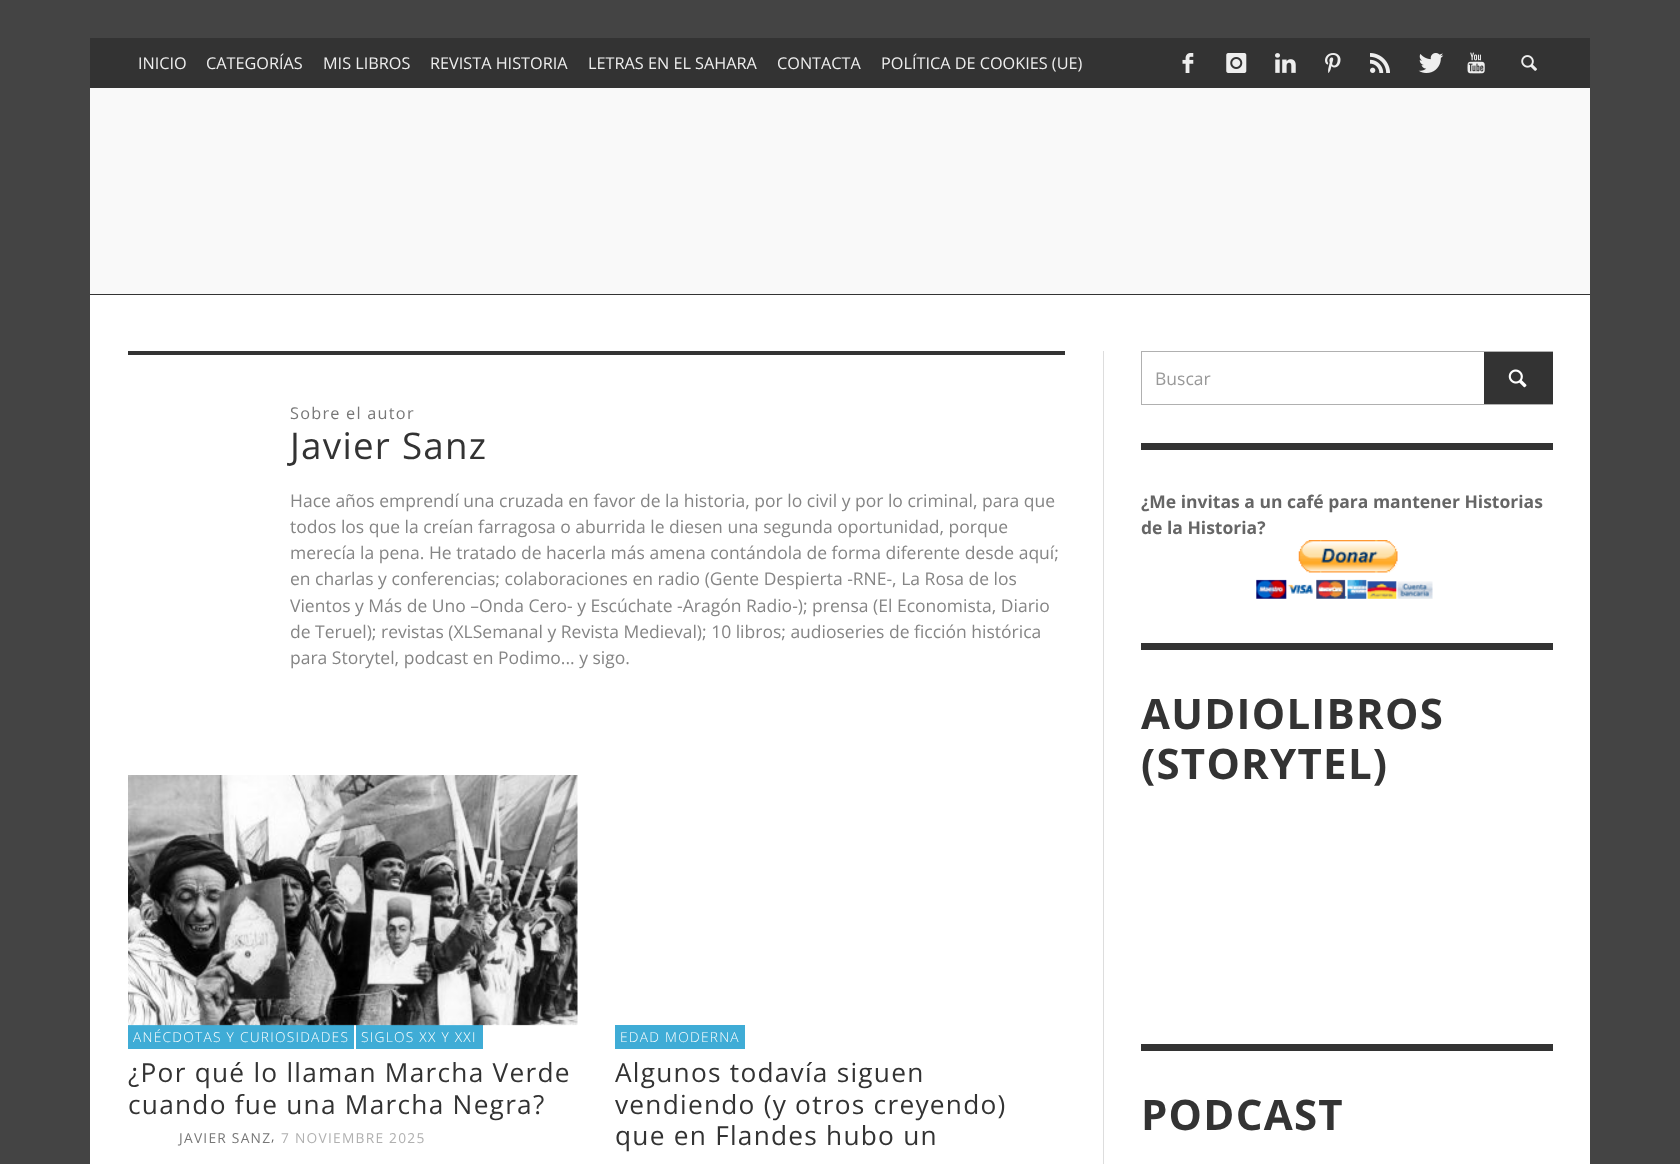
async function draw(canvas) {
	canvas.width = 1680;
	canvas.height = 1164;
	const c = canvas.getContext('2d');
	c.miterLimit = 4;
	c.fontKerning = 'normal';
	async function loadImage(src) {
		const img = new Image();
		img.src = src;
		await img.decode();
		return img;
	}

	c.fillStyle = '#444';
	c.fillRect(0, 0, 1680, 1164);
	c.fillStyle = '#fff';
	c.fillRect(90, 295, 1500, 869);
	c.fillStyle = '#333';
	c.fillRect(90, 38, 1500, 50);
	c.font = '16.25px Open Sans';
	c.fillStyle = '#eee';
	for (const [text, x, y] of [
		['INICIO', 138, 69],
		['CATEGORÍAS', 206, 69],
		['MIS LIBROS', 323, 69],
		['REVISTA HISTORIA', 430, 69],
		['LETRAS EN EL SAHARA', 588, 69],
		['CONTACTA', 777, 69],
		['POLÍTICA DE COOKIES (UE)', 881, 69],
	]) {
		c.fillText(text, x, y);
	}
	c.drawImage(await loadImage('img1.png'), 1182, 53, 12, 20);
	c.drawImage(await loadImage('img2.png'), 1226, 53, 21, 20);
	c.drawImage(await loadImage('img3.png'), 1275, 53, 21, 20);
	c.drawImage(await loadImage('img4.png'), 1325, 53, 16, 20);
	c.drawImage(await loadImage('img5.png'), 1370, 53, 20, 20);
	c.drawImage(await loadImage('img6.png'), 1418, 53, 26, 20);
	c.drawImage(await loadImage('img7.png'), 1467, 52, 18, 22);
	c.drawImage(await loadImage('img8.png'), 1521, 55, 16, 16);
	for (const [x, y, w, h, color] of [
		[90, 88, 1500, 206, '#f9f9f9'],
		[90, 294, 1500, 1, '#333'],
		[128, 351, 937, 4, '#333'],
	]) {
		c.fillStyle = color;
		c.fillRect(x, y, w, h);
	}
	c.letterSpacing = '1.25px';
	c.fillStyle = '#777';
	c.fillText('Sobre el autor', 290, 419);
	c.font = '36.75px Open Sans';
	c.fillStyle = '#333';
	c.fillText('Javier Sanz', 290, 459);
	c.letterSpacing = '0px';
	c.font = '17.5px Open Sans';
	c.fillStyle = '#858585';
	for (const [text, x, y] of [
		['Hace años emprendí una cruzada en favor de la historia, por lo civil y por lo criminal, para que', 290, 507],
		['todos los que la creían farragosa o aburrida le diesen una segunda oportunidad, porque', 290, 533],
		['merecía la pena. He tratado de hacerla más amena contándola de forma diferente desde aquí;', 290, 559],
		['en charlas y conferencias; colaboraciones en radio (Gente Despierta -RNE-, La Rosa de los', 290, 585],
		['Vientos y Más de Uno –Onda Cero- y Escúchate -Aragón Radio-); prensa (El Economista, Diario', 290, 612],
		['de Teruel); revistas (XLSemanal y Revista Medieval); 10 libros; audioseries de ficción histórica', 290, 638],
		['para Storytel, podcast en Podimo... y sigo.', 290, 664],
	]) {
		c.fillText(text, x, y);
	}
	c.fillStyle = '#3facd6';
	c.fillRect(128, 1025, 226, 24);
	c.fillRect(356, 1025, 127, 24);
	c.drawImage(await loadImage('img9.png'), 128, 775, 450, 251);
	c.letterSpacing = '1.25px';
	c.font = '300 13.75px Open Sans';
	c.fillStyle = '#fff';
	c.fillText('ANÉCDOTAS Y CURIOSIDADES', 133, 1042);
	c.fillText('SIGLOS XX Y XXI', 361, 1042);
	c.font = '26.25px Open Sans';
	c.fillStyle = '#333';
	c.fillText('¿Por qué lo llaman Marcha Verde', 128, 1082);
	c.fillText('cuando fue una Marcha Negra?', 128, 1114);
	c.font = '13.75px Open Sans';
	c.fillStyle = '#777';
	c.fillText('JAVIER SANZ', 179, 1143);
	c.fillStyle = '#666';
	c.fillText(',', 271, 1141);
	c.fillStyle = '#b0b0b0';
	c.fillText('7 NOVIEMBRE 2025', 281, 1143);
	c.fillStyle = '#3facd6';
	c.fillRect(615, 1025, 130, 24);
	c.font = '300 13.75px Open Sans';
	c.fillStyle = '#fff';
	c.fillText('EDAD MODERNA', 620, 1042);
	c.font = '26.25px Open Sans';
	c.fillStyle = '#333';
	for (const [text, x, y] of [
		['Algunos todavía siguen', 615, 1082],
		['vendiendo (y otros creyendo)', 615, 1114],
		['que en Flandes hubo un', 615, 1145],
	]) {
		c.fillText(text, x, y);
	}
	c.fillStyle = '#ddd';
	c.fillRect(1103, 351, 1, 813);
	c.strokeStyle = '#b0b0b0';
	c.strokeRect(1141.5, 351.5, 411, 53);
	c.letterSpacing = '0px';
	c.font = '17.5px Open Sans';
	c.fillStyle = '#999';
	c.fillText('Buscar', 1155, 385);
	c.fillStyle = '#333';
	c.fillRect(1484, 352, 69, 52);
	c.drawImage(await loadImage('img10.png'), 1508, 369, 19, 19);
	c.fillRect(1141, 443, 412, 7);
	c.font = 'bold 17.5px Open Sans';
	c.fillStyle = '#666';
	c.fillText('¿Me invitas a un café para mantener Historias', 1141, 508);
	c.fillText('de la Historia?', 1141, 534);
	c.drawImage(await loadImage('img11.png'), 1256, 540, 177, 59);
	c.fillStyle = '#333';
	c.fillRect(1141, 643, 412, 7);
	c.letterSpacing = '1.25px';
	c.font = 'bold 42px Open Sans';
	c.fillText('AUDIOLIBROS', 1141, 729);
	c.fillText('(STORYTEL)', 1141, 779);
	c.fillRect(1141, 1044, 412, 7);
	c.fillText('PODCAST', 1141, 1130);
}

draw(document.querySelector('canvas'));
